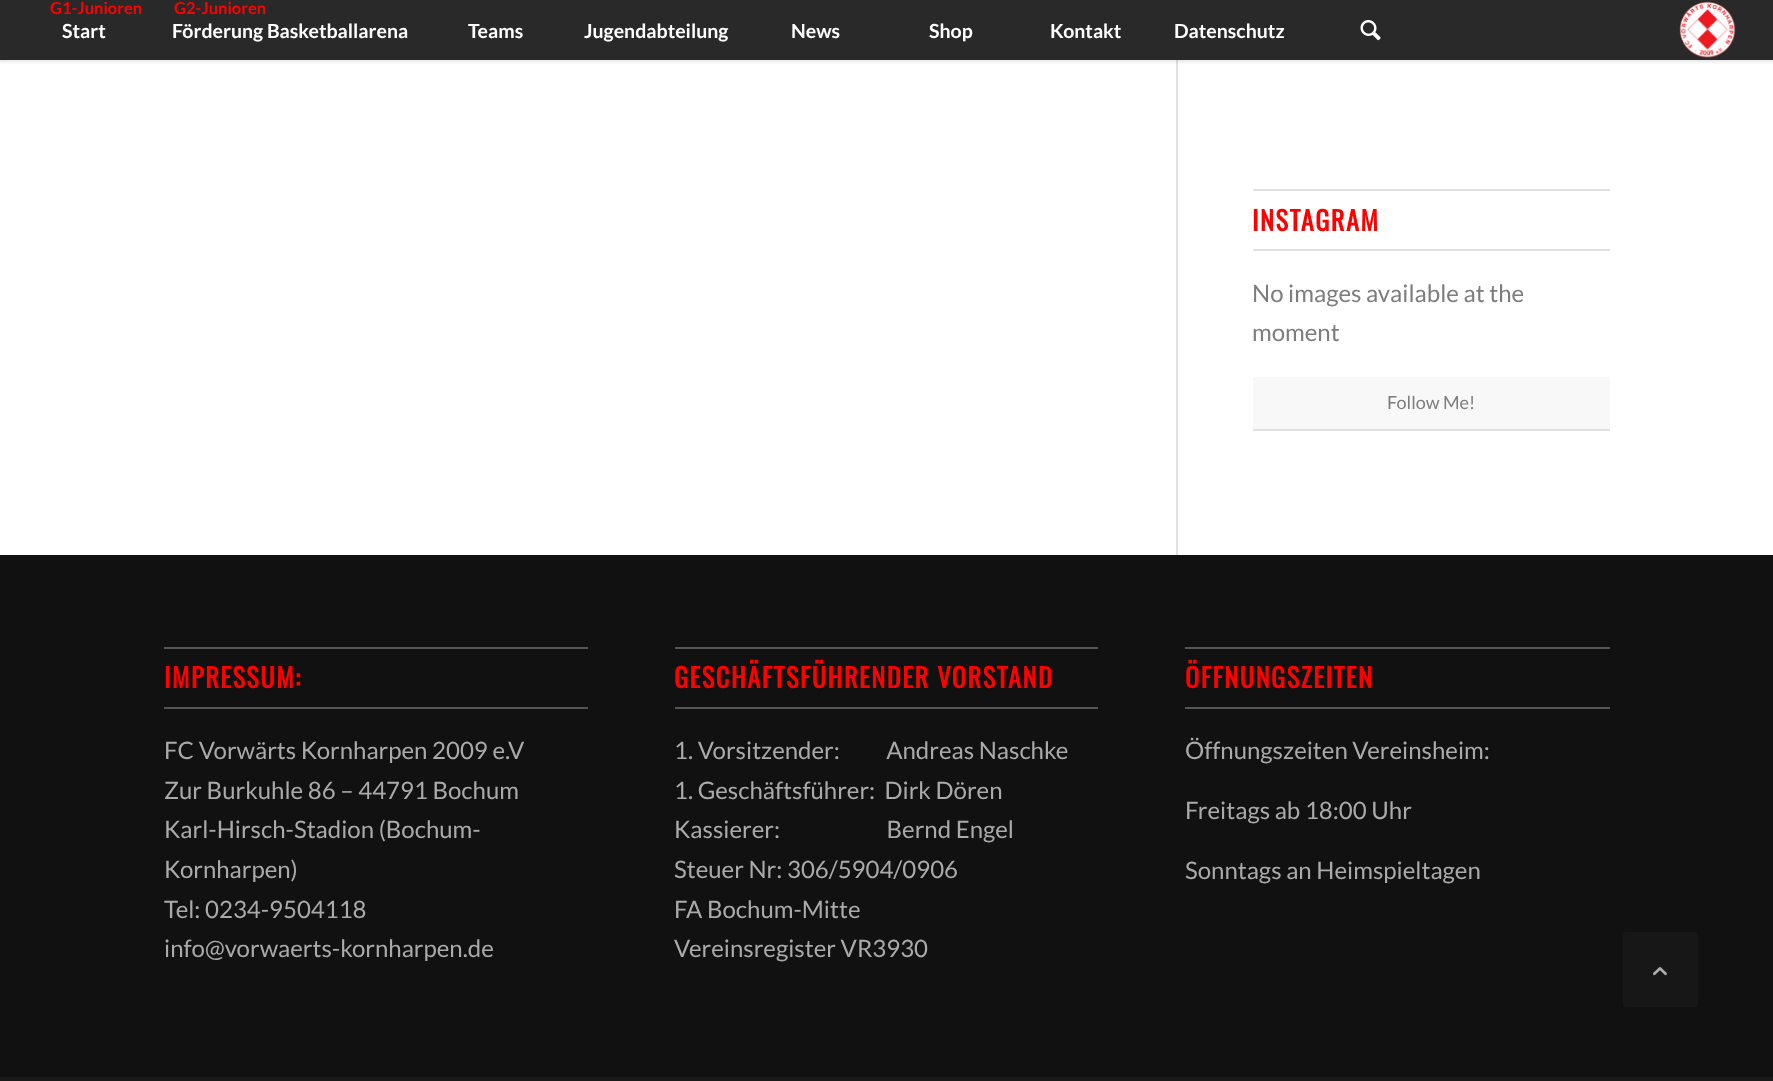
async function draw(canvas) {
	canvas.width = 1773;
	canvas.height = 1081;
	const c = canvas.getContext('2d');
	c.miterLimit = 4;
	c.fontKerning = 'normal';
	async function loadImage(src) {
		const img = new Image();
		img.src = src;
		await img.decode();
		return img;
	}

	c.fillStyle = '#fff';
	c.fillRect(0, 0, 1773, 1081);
	c.fillStyle = '#e1e1e1';
	c.fillRect(1176, 60, 2, 495);
	c.fillStyle = '#0000001a';
	c.filter = 'blur(1.5px)';
	c.beginPath();
	c.rect(-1, -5, 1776, 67);
	c.fill();
	c.filter = 'none';
	c.fillStyle = '#292929';
	c.fillRect(0, 0, 1773, 60);
	c.font = 'bold 16.5px Lato';
	c.fillStyle = '#f00';
	c.fillText('G1-Junioren', 50, 14);
	c.fillText('G2-Junioren', 174, 14);
	c.font = 'bold 19.5px Lato';
	c.fillStyle = '#fff';
	for (const [text, x, y] of [
		['Start', 62, 38],
		['Förderung Basketballarena', 172, 38],
		['Teams', 468, 38],
		['Jugendabteilung', 584, 38],
		['News', 791, 38],
		['Shop', 929, 38],
		['Kontakt', 1050, 38],
		['Datenschutz', 1174, 38],
	]) {
		c.fillText(text, x, y);
	}
	c.drawImage(await loadImage('img1.png'), 1360, 20, 21, 21);
	c.drawImage(await loadImage('img2.png'), 1679, 1, 57, 57);
	c.fillStyle = '#e1e1e1';
	c.fillRect(1253, 189, 357, 2);
	c.fillRect(1253, 249, 357, 2);
	c.letterSpacing = '1.5px';
	c.font = 'bold 26.4px Oswald';
	c.fillStyle = '#f00';
	c.fillText('INSTAGRAM', 1252, 231);
	c.letterSpacing = '0px';
	c.font = '24px Lato';
	c.fillStyle = '#7d7d7d';
	c.fillText('No images available at the', 1252, 302);
	c.fillText('moment', 1252, 341);
	c.fillStyle = '#f8f8f8';
	c.fillRect(1253, 377, 357, 52);
	c.fillStyle = '#e1e1e1';
	c.fillRect(1253, 429, 357, 2);
	c.font = '18px Lato';
	c.fillStyle = '#7d7d7d';
	c.fillText('Follow Me!', 1387, 409);
	for (const [x, y, w, h, color] of [
		[0, 555, 1773, 522, '#111'],
		[164, 647, 424, 2, '#555'],
		[164, 707, 424, 2, '#555'],
	]) {
		c.fillStyle = color;
		c.fillRect(x, y, w, h);
	}
	c.letterSpacing = '1.5px';
	c.font = 'bold 26.4px Oswald';
	c.fillStyle = '#f00';
	c.fillText('IMPRESSUM:', 164, 688);
	c.letterSpacing = '0px';
	c.font = '24px Lato';
	c.fillStyle = '#aaa';
	for (const [text, x, y] of [
		['FC Vorwärts Kornharpen 2009 e.V', 164, 759],
		['Zur Burkuhle 86 – 44791 Bochum', 164, 799],
		['Karl-Hirsch-Stadion (Bochum-', 164, 838],
		['Kornharpen)', 164, 878],
		['Tel: 0234-9504118', 164, 918],
		['info@vorwaerts-kornharpen.de', 164, 957],
	]) {
		c.fillText(text, x, y);
	}
	c.fillStyle = '#555';
	c.fillRect(675, 647, 423, 2);
	c.fillRect(675, 707, 423, 2);
	c.letterSpacing = '1.5px';
	c.font = 'bold 26.4px Oswald';
	c.fillStyle = '#f00';
	c.fillText('GESCHÄFTSFÜHRENDER VORSTAND', 674, 688);
	c.letterSpacing = '0px';
	c.font = '24px Lato';
	c.fillStyle = '#aaa';
	for (const [text, x, y] of [
		['1. Vorsitzender:          Andreas Naschke', 674, 759],
		['1. Geschäftsführer:  Dirk Dören', 674, 799],
		['Kassierer:                       Bernd Engel', 674, 838],
		['Steuer Nr: 306/5904/0906', 674, 878],
		['FA Bochum-Mitte', 674, 918],
		['Vereinsregister VR3930', 674, 957],
	]) {
		c.fillText(text, x, y);
	}
	c.fillStyle = '#555';
	c.fillRect(1185, 647, 425, 2);
	c.fillRect(1185, 707, 425, 2);
	c.letterSpacing = '1.5px';
	c.font = 'bold 26.4px Oswald';
	c.fillStyle = '#f00';
	c.fillText('ÖFFNUNGSZEITEN', 1185, 688);
	c.letterSpacing = '0px';
	c.font = '24px Lato';
	c.fillStyle = '#aaa';
	for (const [text, x, y] of [
		['Öffnungszeiten Vereinsheim:', 1185, 759],
		['Freitags ab 18:00 Uhr', 1185, 819],
		['Sonntags an Heimspieltagen', 1185, 879],
	]) {
		c.fillText(text, x, y);
	}
	c.fillStyle = '#191919';
	c.fillRect(0, 1077, 1773, 4);
	c.fillStyle = '#171717';
	c.beginPath();
	c.roundRect(1623, 932, 75, 75, 3);
	c.fill();
	c.drawImage(await loadImage('img3.png'), 1653, 967, 14, 9);
}

draw(document.querySelector('canvas'));
